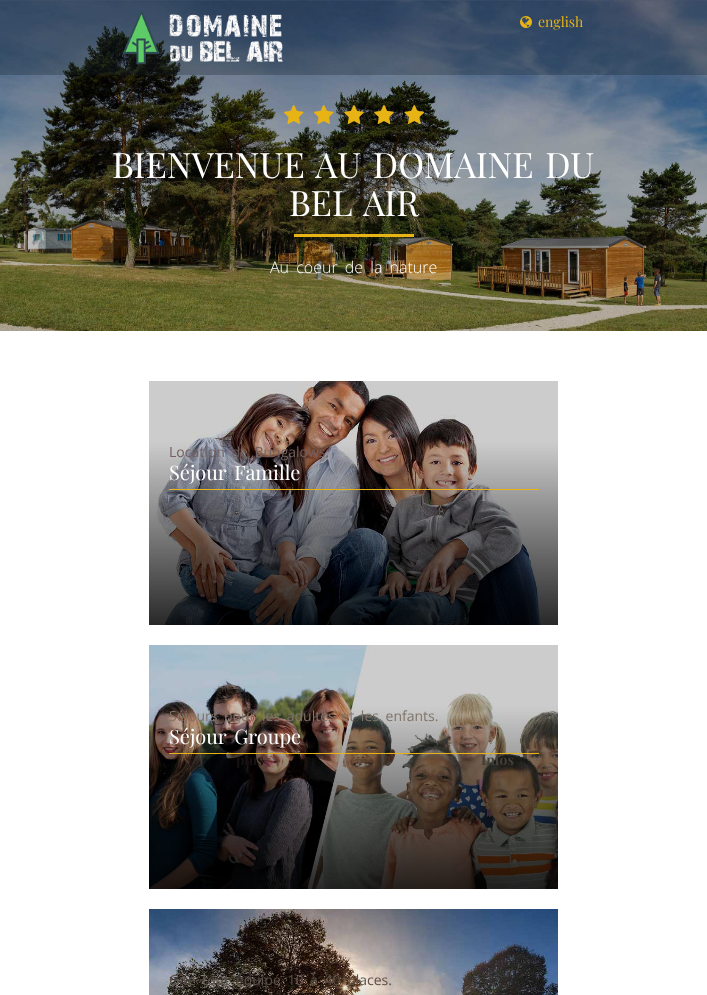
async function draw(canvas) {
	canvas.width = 707;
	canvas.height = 995;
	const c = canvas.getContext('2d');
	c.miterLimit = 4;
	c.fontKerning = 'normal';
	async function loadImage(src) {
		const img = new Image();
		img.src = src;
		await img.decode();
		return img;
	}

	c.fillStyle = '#fff';
	c.fillRect(0, 0, 707, 995);
	c.drawImage(await loadImage('img3.png'), 0, 0, 707, 331);
	c.fillStyle = '#16262e4d';
	c.fillRect(0, 0, 707, 75);
	c.drawImage(await loadImage('img1.png'), 122, 11, 161, 54);
	c.drawImage(await loadImage('img2.png'), 520, 16, 12, 12);
	c.font = '14px Playfair Display';
	c.fillStyle = '#e7b315';
	c.fillText('english', 538, 27);
	c.drawImage(await loadImage('img4.png'), 284, 105, 140, 19);
	c.wordSpacing = '3px';
	c.font = '35px Playfair Display';
	c.fillStyle = '#fff';
	c.fillText('BIENVENUE AU DOMAINE DU', 112, 178);
	c.fillText('BEL AIR', 289, 216);
	c.fillStyle = '#e7b315';
	c.fillRect(294, 234, 120, 3);
	c.font = '300 16px Open Sans';
	c.fillStyle = '#fff';
	c.fillText('Au coeur de la nature', 270, 273);
	c.drawImage(await loadImage('img5.png'), 149, 381, 409, 244);
	c.font = '14px Open Sans';
	c.fillStyle = '#72615f';
	c.fillText('Location de Bungalows.', 169, 457);
	c.font = '20px Playfair Display';
	c.fillStyle = '#fff';
	c.fillText('Séjour Famille', 169, 480);
	c.fillStyle = '#e7b315';
	c.fillRect(169, 489, 370, 1);
	c.wordSpacing = '0px';
	c.font = 'bold 14px Playfair Display';
	c.fillStyle = '#8e8e8f';
	c.fillText('I', 481, 501);
	c.drawImage(await loadImage('img6.png'), 149, 645, 409, 244);
	c.wordSpacing = '3px';
	c.font = '14px Open Sans';
	c.fillStyle = '#807469';
	c.fillText('Séjours pour les adultes et les enfants.', 169, 721);
	c.font = '20px Playfair Display';
	c.fillStyle = '#fff';
	c.fillText('Séjour Groupe', 169, 744);
	c.fillStyle = '#e7b315';
	c.fillRect(169, 753, 370, 1);
	c.font = 'bold 14px Playfair Display';
	c.fillStyle = '#181312';
	c.fillText('plus', 236, 765);
	c.wordSpacing = '0px';
	c.fillStyle = '#423f38';
	c.fillText('Infos', 481, 765);
	c.drawImage(await loadImage('img7.png'), 149, 909, 409, 86);
	c.wordSpacing = '3px';
	c.font = '14px Open Sans';
	c.fillStyle = '#5c5048';
	c.fillText('Gîte tout équipé 10 à 40 places.', 169, 985);
}

draw(document.querySelector('canvas'));
